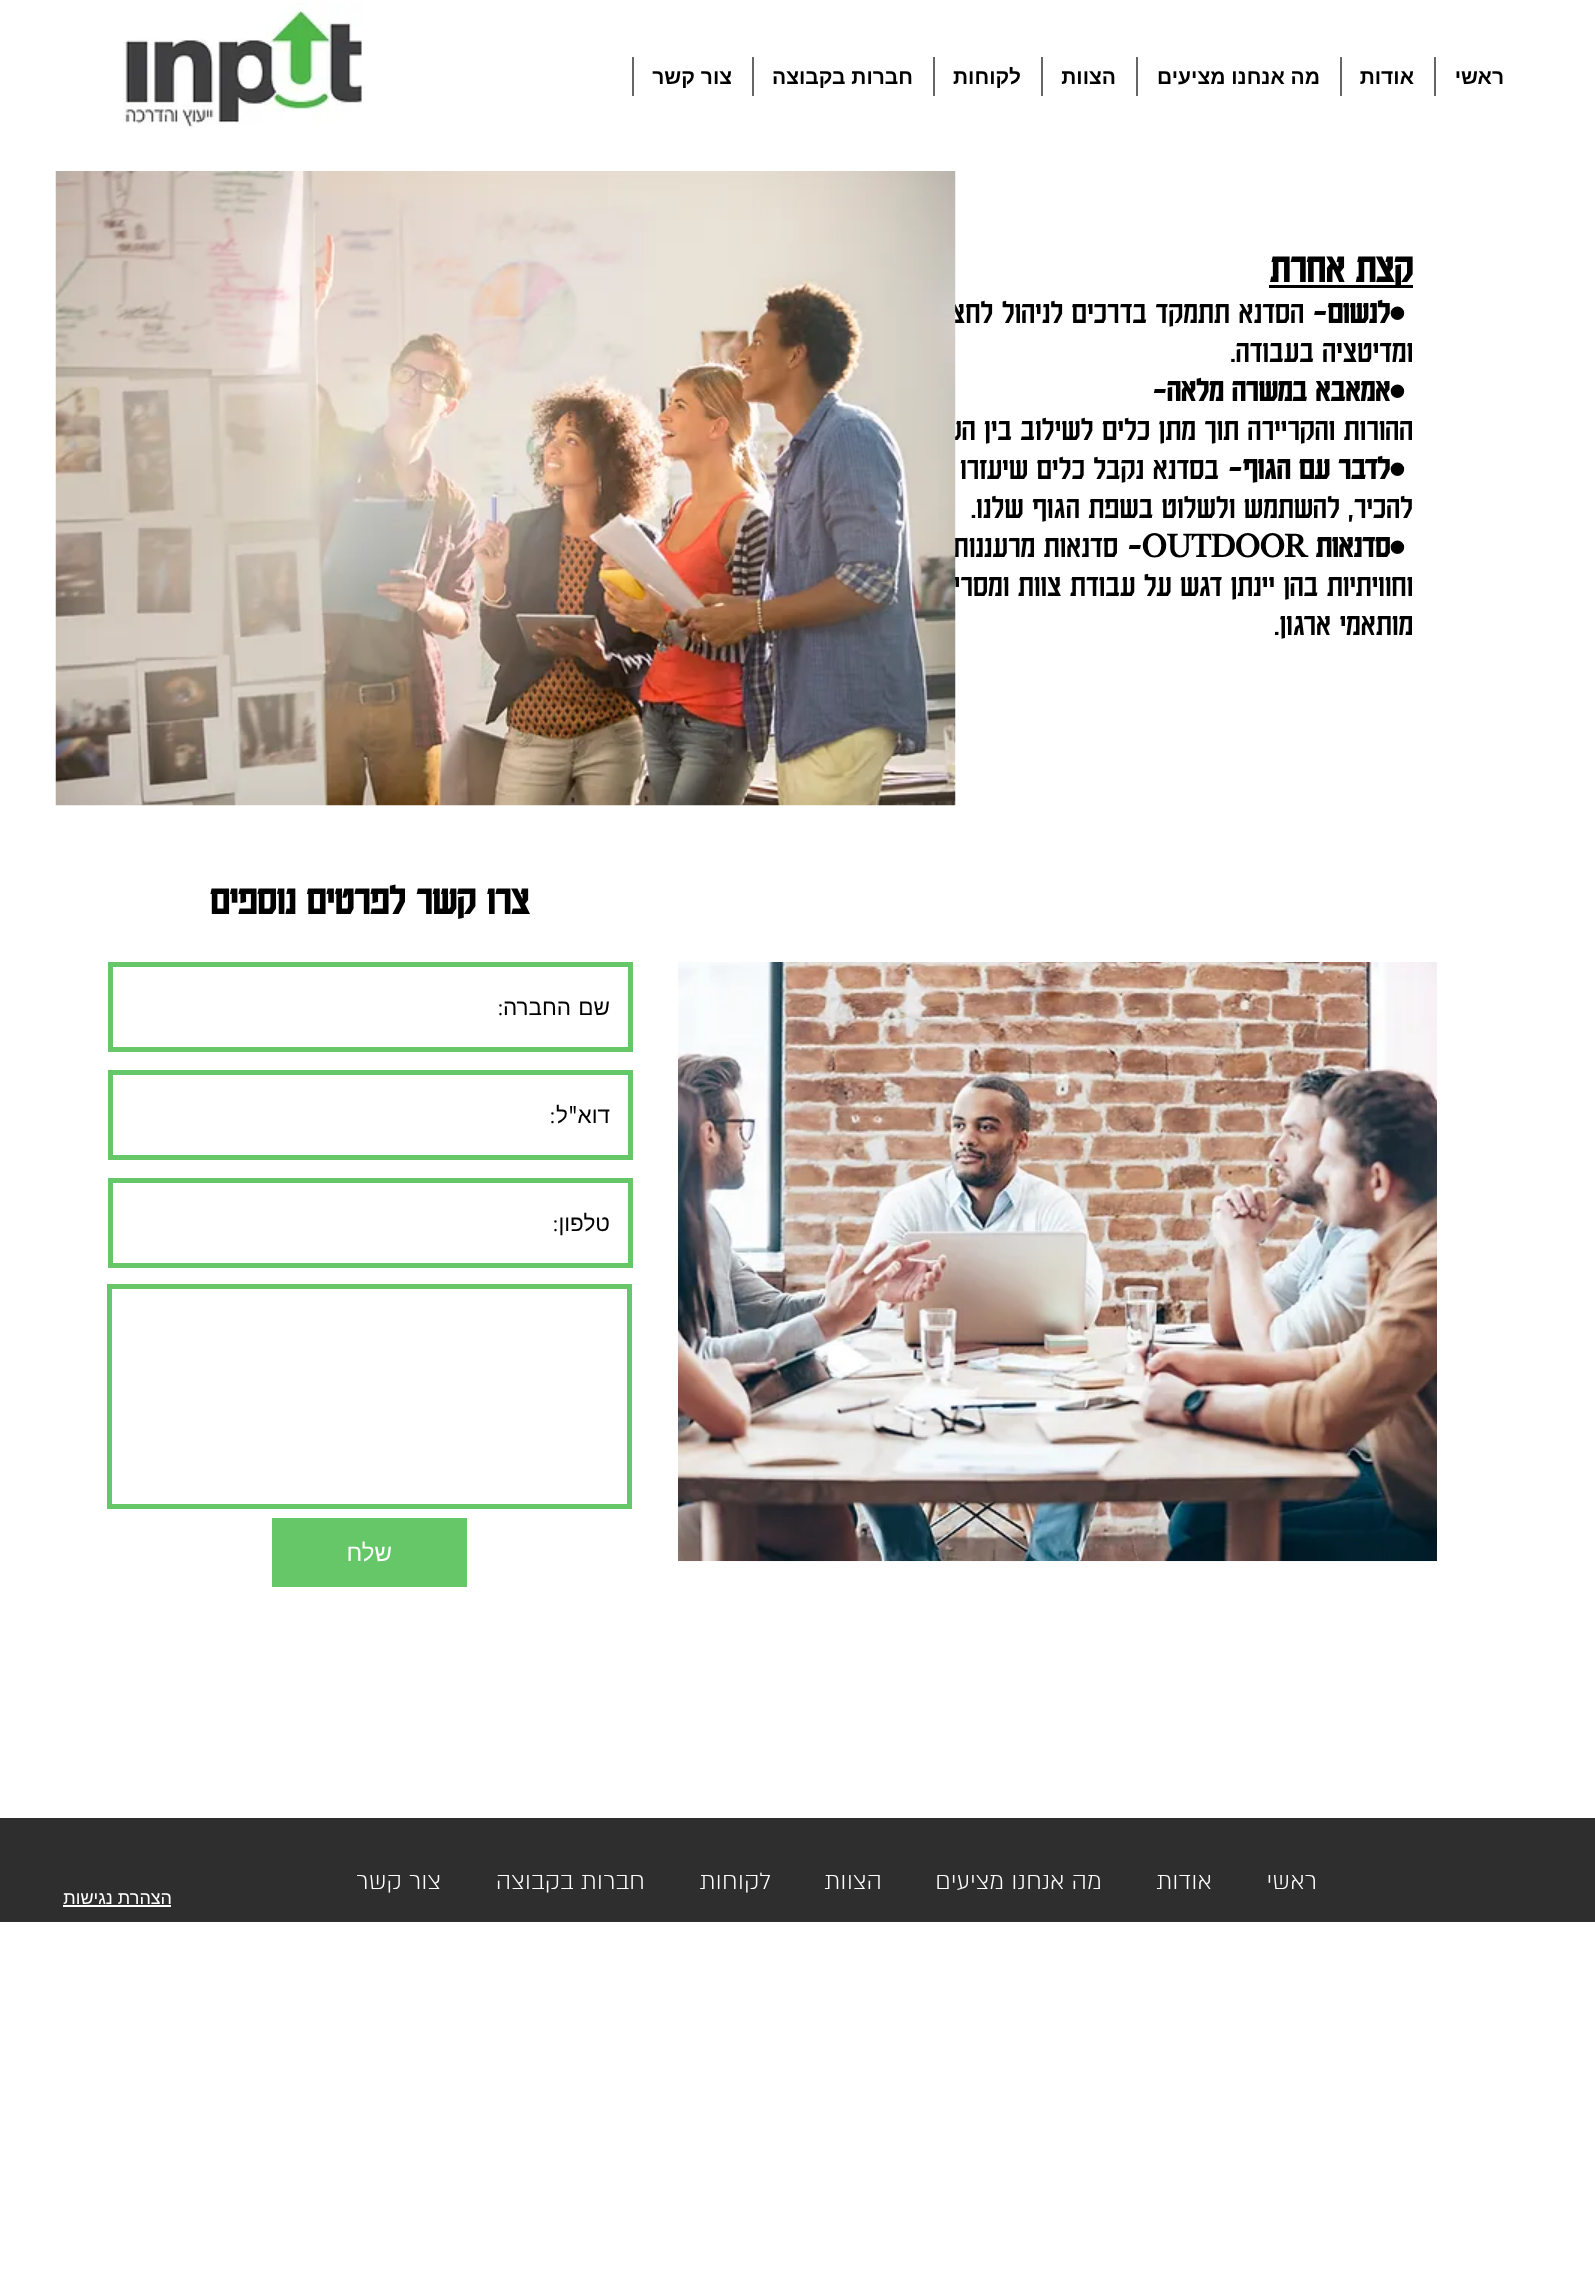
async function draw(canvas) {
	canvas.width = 1595;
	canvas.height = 2292;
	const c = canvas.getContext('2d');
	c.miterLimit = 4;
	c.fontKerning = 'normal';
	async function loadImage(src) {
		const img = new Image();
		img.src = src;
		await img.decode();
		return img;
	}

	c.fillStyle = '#fff';
	c.fillRect(0, 0, 1595, 2292);
	c.fillStyle = '#666';
	c.fillRect(1434, 57, 2, 39);
	c.direction = 'rtl';
	c.font = 'bold 21px Liberation Sans';
	c.fillStyle = '#000';
	c.fillText('ראשי', 1504, 84);
	c.fillStyle = '#666';
	c.fillRect(1340, 57, 2, 39);
	c.fillStyle = '#000';
	c.fillText('אודות', 1414, 84);
	c.fillStyle = '#666';
	c.fillRect(1136, 57, 2, 39);
	c.fillStyle = '#000';
	c.fillText('מה אנחנו מציעים', 1320, 84);
	c.fillStyle = '#666';
	c.fillRect(1041, 57, 2, 39);
	c.fillStyle = '#000';
	c.fillText('הצוות', 1116, 84);
	c.fillStyle = '#666';
	c.fillRect(933, 57, 2, 39);
	c.fillStyle = '#000';
	c.fillText('לקוחות', 1021, 84);
	c.fillStyle = '#666';
	c.fillRect(752, 57, 2, 39);
	c.fillStyle = '#000';
	c.fillText('חברות בקבוצה', 913, 84);
	c.fillStyle = '#666';
	c.fillRect(632, 57, 2, 39);
	c.fillStyle = '#000';
	c.fillText('צור קשר', 732, 84);
	c.drawImage(await loadImage('img1.png'), 123, 3, 240, 126);
	c.fillRect(1269, 285, 144, 3);
	c.font = 'bold 42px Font';
	c.fillText('קצת אחרת', 1413, 282);
	c.direction = 'ltr';
	c.font = '500 33px Font';
	c.fillText('•', 1390, 323);
	c.direction = 'rtl';
	c.font = 'bold 33px Font';
	c.fillText('לנשום-', 1390, 323);
	c.font = '500 33px Font';
	c.fillText('הסדנא תתמקד בדרכים לניהול לחצים', 1304, 323);
	c.fillText('ומדיטציה בעבודה.', 1413, 362);
	c.direction = 'ltr';
	c.fillText('•', 1390, 401);
	c.direction = 'rtl';
	c.font = 'bold 33px Font';
	c.fillText('אמאבא במשרה מלאה-', 1390, 401);
	c.font = '500 33px Font';
	c.fillText('ההורות והקריירה תוך מתן כלים לשילוב בין השניים.', 1413, 440);
	c.direction = 'ltr';
	c.fillText('•', 1390, 479);
	c.direction = 'rtl';
	c.font = 'bold 33px Font';
	c.fillText('לדבר עם הגוף-', 1390, 479);
	c.font = '500 33px Font';
	c.fillText('בסדנא נקבל כלים שיעזרו לנו', 1219, 479);
	c.fillText('להכיר, להשתמש ולשלוט בשפת הגוף שלנו.', 1413, 518);
	c.direction = 'ltr';
	c.fillText('•', 1390, 557);
	c.direction = 'rtl';
	c.font = 'bold 33px Font';
	c.fillText('סדנאות', 1390, 557);
	c.direction = 'ltr';
	c.fillText('-OUTDOOR', 1127, 557);
	c.direction = 'rtl';
	c.font = '500 33px Font';
	for (const [text, x, y] of [
		['סדנאות מרעננות', 1118, 557],
		['וחוויתיות בהן יינתן דגש על עבודת צוות ומסרים', 1413, 596],
		['מותאמי ארגון.', 1413, 635],
	]) {
		c.fillText(text, x, y);
	}
	c.drawImage(await loadImage('img2.png'), 678, 962, 759, 600);
	c.drawImage(await loadImage('img3.png'), 55, 171, 901, 635);
	c.font = 'bold 42px Font';
	c.fillText('צרו קשר לפרטים נוספים', 529, 914);
	c.strokeStyle = '#65c767';
	c.lineWidth = 5;
	c.strokeRect(110.5, 964.5, 520, 85);
	c.wordSpacing = '1px';
	c.font = '22.5px Liberation Sans';
	c.fillText('שם החברה', 610, 1015);
	c.wordSpacing = '0px';
	c.font = '22.5px futura';
	c.fillText(':', 504, 1015);
	c.strokeRect(110.5, 1072.5, 520, 85);
	c.font = '22.5px Liberation Sans';
	c.fillText('דוא', 610, 1123);
	c.font = '22.5px futura';
	c.fillText('"', 578, 1123);
	c.font = '22.5px Liberation Sans';
	c.fillText('ל', 568, 1123);
	c.font = '22.5px futura';
	c.fillText(':', 556, 1123);
	c.strokeRect(110.5, 1180.5, 520, 85);
	c.font = '22.5px Liberation Sans';
	c.fillText('טלפון', 610, 1231);
	c.font = '22.5px futura';
	c.fillText(':', 559, 1231);
	c.strokeRect(109.5, 1286.5, 520, 220);
	c.fillStyle = '#65c767';
	c.fillRect(272, 1518, 195, 69);
	c.font = '24px Liberation Sans';
	c.fillStyle = '#fff';
	c.fillText('שלח', 392, 1561);
	c.fillStyle = '#2f2e2e';
	c.fillRect(0, 1818, 1595, 104);
	c.font = '300 27px "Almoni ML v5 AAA"';
	c.fillStyle = '#fff';
	for (const [text, x, y] of [
		['ראשי', 1317, 1889],
		['אודות', 1212, 1889],
		['מה אנחנו מציעים', 1102, 1889],
		['הצוות', 882, 1889],
		['לקוחות', 771, 1889],
		['חברות בקבוצה', 645, 1889],
		['צור קשר', 441, 1889],
	]) {
		c.fillText(text, x, y);
	}
	c.font = '18px Liberation Sans';
	c.fillText('הצהרת נגישות', 172, 1904);
	c.fillRect(63, 1905, 108, 2);
}

draw(document.querySelector('canvas'));
